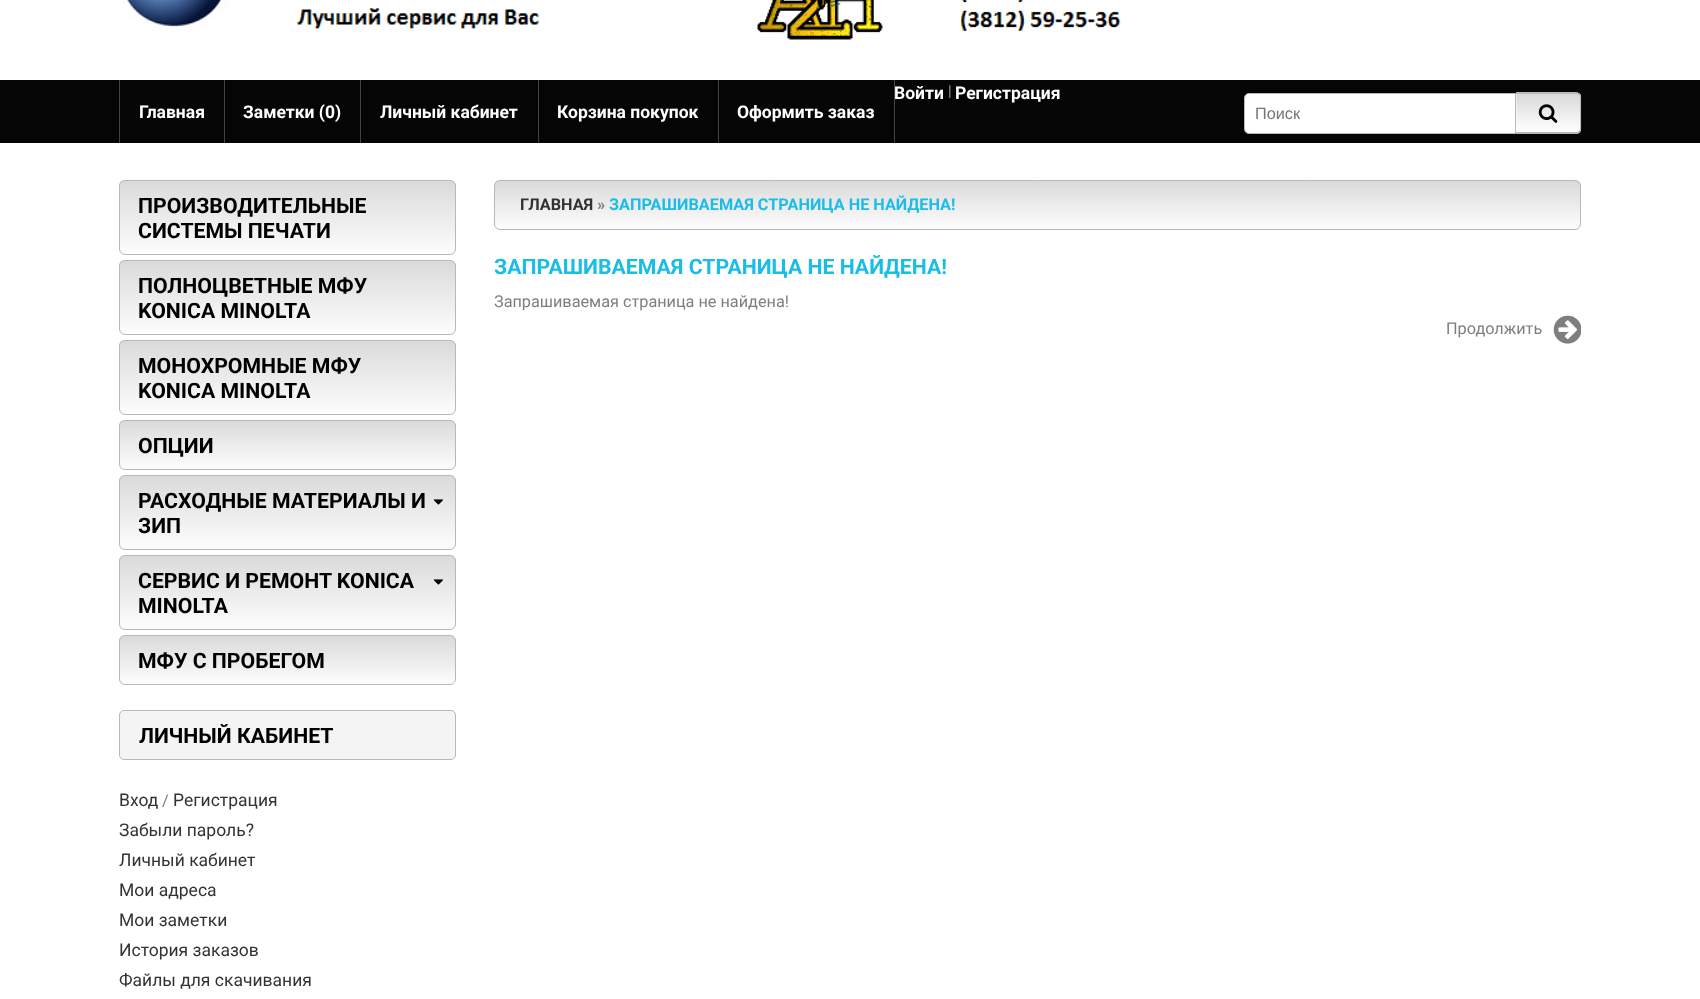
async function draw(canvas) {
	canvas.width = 1700;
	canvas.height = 999;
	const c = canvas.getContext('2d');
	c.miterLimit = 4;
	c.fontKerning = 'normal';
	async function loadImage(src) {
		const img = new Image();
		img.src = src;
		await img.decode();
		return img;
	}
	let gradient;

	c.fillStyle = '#fff';
	c.fillRect(0, 0, 1700, 999);
	c.drawImage(await loadImage('img1.png'), 124, 0, 997, 40);
	c.fillStyle = '#050505';
	c.fillRect(0, 80, 1700, 63);
	c.font = 'bold 17.5px Roboto';
	c.fillStyle = '#fff';
	c.fillText('Войти', 894, 99);
	c.font = '15px Roboto';
	c.fillStyle = '#9d9d9d';
	c.fillText('|', 948, 96);
	c.font = 'bold 17.5px Roboto';
	c.fillStyle = '#fff';
	c.fillText('Регистрация', 955, 99);
	c.fillStyle = '#424242';
	c.fillRect(224, 80, 1, 63);
	c.fillRect(119, 80, 1, 63);
	c.fillStyle = '#fff';
	c.fillText('Главная', 139, 118);
	c.fillStyle = '#424242';
	c.fillRect(360, 80, 1, 63);
	c.fillStyle = '#fff';
	c.fillText('Заметки (0)', 243, 118);
	c.fillStyle = '#424242';
	c.fillRect(538, 80, 1, 63);
	c.fillStyle = '#fff';
	c.fillText('Личный кабинет', 380, 118);
	c.fillStyle = '#424242';
	c.fillRect(718, 80, 1, 63);
	c.fillStyle = '#fff';
	c.fillText('Корзина покупок', 557, 118);
	c.fillStyle = '#424242';
	c.fillRect(894, 80, 1, 63);
	c.fillStyle = '#fff';
	c.fillText('Оформить заказ', 737, 118);
	c.beginPath();
	c.roundRect(1244.5, 93.5, 271, 40, [4.5, 0, 0, 4.5]);
	c.fill();
	c.strokeStyle = '#b8b8b8';
	c.stroke();
	c.font = '16.25px Liberation Sans';
	c.fillStyle = '#757575';
	c.fillText('Поиск', 1255, 119);
	c.fillStyle = '#fefefe';
	c.beginPath();
	c.roundRect(1516, 93, 65, 41, [0, 5, 5, 0]);
	c.fill();
	c.drawImage(await loadImage('img2.png'), 1516, 93, 66, 39);
	c.fillStyle = '#b8b8b8';
	c.beginPath();
	c.moveTo(1516, 92);
	c.lineTo(1576, 92);
	c.bezierCurveTo(1579, 92, 1581, 95, 1581, 98);
	c.lineTo(1581, 129);
	c.bezierCurveTo(1581, 132, 1579, 134, 1576, 134);
	c.lineTo(1516, 134);
	c.closePath();
	c.moveTo(1516, 94);
	c.lineTo(1576, 94);
	c.bezierCurveTo(1578, 94, 1580, 95, 1580, 98);
	c.lineTo(1580, 129);
	c.bezierCurveTo(1580, 131, 1578, 132, 1576, 132);
	c.lineTo(1516, 132);
	c.closePath();
	c.fill('evenodd');
	c.drawImage(await loadImage('img3.png'), 1538, 104, 20, 19);
	c.save();
	c.beginPath();
	c.roundRect(119, 180, 337, 75, 6);
	c.clip();
	gradient = c.createLinearGradient(288, 181, 288, 254);
	gradient.addColorStop(0, '#dadada');
	gradient.addColorStop(1, '#fdfdfd');
	c.fillStyle = gradient;
	c.fillRect(119, 181, 337, 73);
	c.restore();
	c.beginPath();
	c.roundRect(119.5, 180.5, 336, 74, 5.5);
	c.stroke();
	c.font = 'bold 21.25px Roboto';
	c.fillStyle = '#000';
	c.fillText('ПРОИЗВОДИТЕЛЬНЫЕ', 138, 213);
	c.fillText('СИСТЕМЫ ПЕЧАТИ', 138, 238);
	c.save();
	c.beginPath();
	c.roundRect(119, 260, 337, 75, 6);
	c.clip();
	gradient = c.createLinearGradient(288, 261, 288, 334);
	gradient.addColorStop(0, '#dadada');
	gradient.addColorStop(1, '#fdfdfd');
	c.fillStyle = gradient;
	c.fillRect(119, 261, 337, 73);
	c.restore();
	c.beginPath();
	c.roundRect(119.5, 260.5, 336, 74, 5.5);
	c.stroke();
	c.fillText('ПОЛНОЦВЕТНЫЕ МФУ', 138, 293);
	c.fillText('KONICA MINOLTA', 138, 318);
	c.save();
	c.beginPath();
	c.roundRect(119, 340, 337, 75, 6);
	c.clip();
	gradient = c.createLinearGradient(288, 341, 288, 414);
	gradient.addColorStop(0, '#dadada');
	gradient.addColorStop(1, '#fdfdfd');
	c.fillStyle = gradient;
	c.fillRect(119, 341, 337, 73);
	c.restore();
	c.beginPath();
	c.roundRect(119.5, 340.5, 336, 74, 5.5);
	c.stroke();
	c.fillText('МОНОХРОМНЫЕ МФУ', 138, 373);
	c.fillText('KONICA MINOLTA', 138, 398);
	c.save();
	c.beginPath();
	c.roundRect(119, 420, 337, 50, 6);
	c.clip();
	gradient = c.createLinearGradient(288, 421, 288, 469);
	gradient.addColorStop(0, '#dadada');
	gradient.addColorStop(1, '#fdfdfd');
	c.fillStyle = gradient;
	c.fillRect(119, 421, 337, 48);
	c.restore();
	c.beginPath();
	c.roundRect(119.5, 420.5, 336, 49, 5.5);
	c.stroke();
	c.fillText('ОПЦИИ', 138, 453);
	c.save();
	c.beginPath();
	c.roundRect(119, 475, 337, 75, 6);
	c.clip();
	gradient = c.createLinearGradient(288, 476, 288, 549);
	gradient.addColorStop(0, '#dadada');
	gradient.addColorStop(1, '#fdfdfd');
	c.fillStyle = gradient;
	c.fillRect(119, 476, 337, 73);
	c.restore();
	c.beginPath();
	c.roundRect(119.5, 475.5, 336, 74, 5.5);
	c.stroke();
	c.fillText('РАСХОДНЫЕ МАТЕРИАЛЫ И', 138, 508);
	c.fillText('ЗИП', 138, 533);
	c.drawImage(await loadImage('img4.png'), 433, 499, 10, 6);
	c.save();
	c.beginPath();
	c.roundRect(119, 555, 337, 75, 6);
	c.clip();
	gradient = c.createLinearGradient(288, 556, 288, 629);
	gradient.addColorStop(0, '#dadada');
	gradient.addColorStop(1, '#fdfdfd');
	c.fillStyle = gradient;
	c.fillRect(119, 556, 337, 73);
	c.restore();
	c.beginPath();
	c.roundRect(119.5, 555.5, 336, 74, 5.5);
	c.stroke();
	c.fillText('СЕРВИС И РЕМОНТ KONICA', 138, 588);
	c.fillText('MINOLTA', 138, 613);
	c.drawImage(await loadImage('img4.png'), 433, 579, 10, 6);
	c.save();
	c.beginPath();
	c.roundRect(119, 635, 337, 50, 6);
	c.clip();
	gradient = c.createLinearGradient(288, 636, 288, 684);
	gradient.addColorStop(0, '#dadada');
	gradient.addColorStop(1, '#fdfdfd');
	c.fillStyle = gradient;
	c.fillRect(119, 636, 337, 48);
	c.restore();
	c.beginPath();
	c.roundRect(119.5, 635.5, 336, 49, 5.5);
	c.stroke();
	c.fillText('МФУ С ПРОБЕГОМ', 138, 668);
	c.fillStyle = '#f4f4f4';
	c.beginPath();
	c.roundRect(119.5, 710.5, 336, 49, 4.5);
	c.fill();
	c.stroke();
	c.fillStyle = '#000';
	c.fillText('ЛИЧНЫЙ КАБИНЕТ', 139, 743);
	c.font = '17.5px Roboto';
	c.fillStyle = '#323232';
	c.fillText('Вход', 119, 806);
	c.font = '16.25px Roboto';
	c.fillStyle = '#7e7e7e';
	c.fillText('/', 162, 806);
	c.font = '17.5px Roboto';
	c.fillStyle = '#323232';
	for (const [text, x, y] of [
		['Регистрация', 173, 806],
		['Забыли пароль?', 119, 836],
		['Личный кабинет', 119, 866],
		['Мои адреса', 119, 896],
		['Мои заметки', 119, 926],
		['История заказов', 119, 956],
		['Файлы для скачивания', 119, 986],
	]) {
		c.fillText(text, x, y);
	}
	c.save();
	c.beginPath();
	c.roundRect(494, 180, 1087, 50, 6);
	c.clip();
	gradient = c.createLinearGradient(1038, 181, 1038, 229);
	gradient.addColorStop(0, '#dadada');
	gradient.addColorStop(1, '#fdfdfd');
	c.fillStyle = gradient;
	c.fillRect(494, 181, 1087, 48);
	c.restore();
	c.beginPath();
	c.roundRect(494.5, 180.5, 1086, 49, 5.5);
	c.stroke();
	c.font = 'bold 16.25px Roboto';
	c.fillText('ГЛАВНАЯ', 520, 210);
	c.fillStyle = '#7e7e7e';
	c.fillText('»', 597, 210);
	c.fillStyle = '#19bde8';
	c.fillText('ЗАПРАШИВАЕМАЯ СТРАНИЦА НЕ НАЙДЕНА!', 609, 210);
	c.font = 'bold 21.25px Roboto';
	c.fillText('ЗАПРАШИВАЕМАЯ СТРАНИЦА НЕ НАЙДЕНА!', 494, 274);
	c.font = '16.25px Roboto';
	c.fillStyle = '#7e7e7e';
	c.fillText('Запрашиваемая страница не найдена!', 494, 307);
	c.fillText('Продолжить', 1446, 334);
	c.drawImage(await loadImage('img5.png'), 1553, 315, 28, 29);
}

draw(document.querySelector('canvas'));
